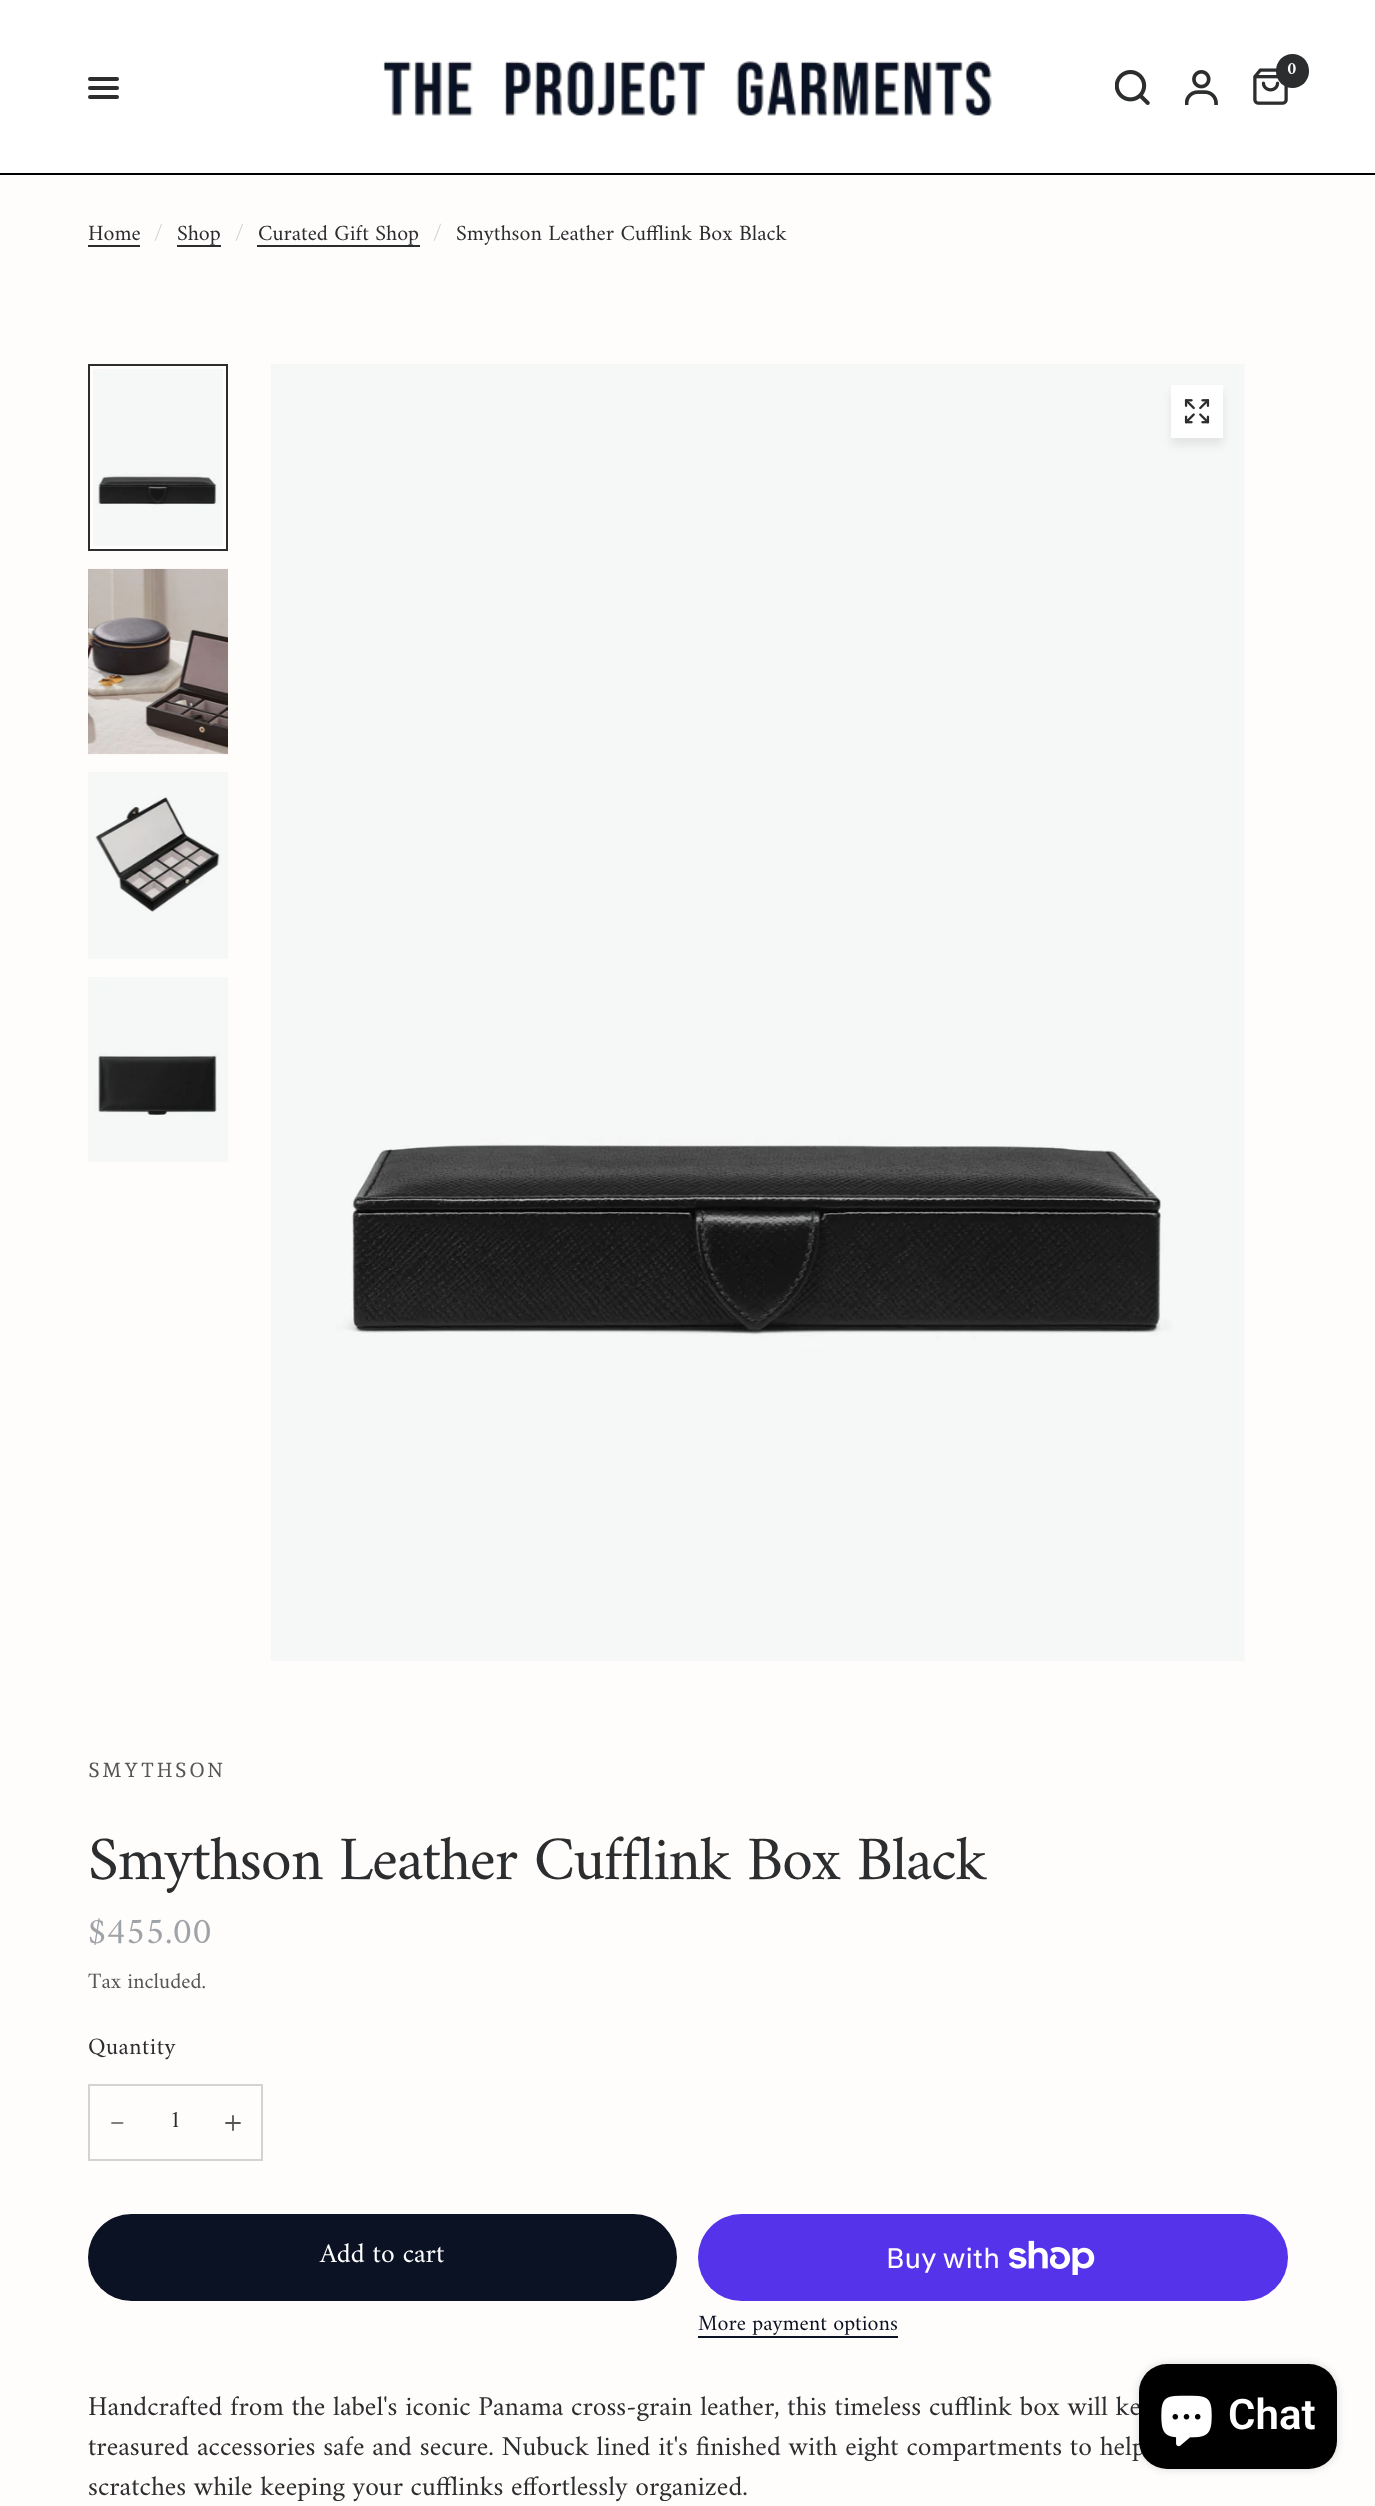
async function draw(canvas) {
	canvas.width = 1375;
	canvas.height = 2506;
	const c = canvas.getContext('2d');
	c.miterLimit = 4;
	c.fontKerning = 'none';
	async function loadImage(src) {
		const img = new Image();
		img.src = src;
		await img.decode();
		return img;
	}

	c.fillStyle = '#fffcfc';
	c.fillRect(0, 0, 1375, 2506);
	c.fillStyle = '#fff';
	c.fillRect(0, 0, 1375, 173);
	c.drawImage(await loadImage('img1.png'), 383, 61, 609, 55);
	c.drawImage(await loadImage('img2.png'), 1253, 68, 35, 37);
	c.fillStyle = '#2c2d2e';
	c.beginPath();
	c.roundRect(1276, 54, 33, 34, 16.5);
	c.fill();
	c.font = 'bold 18px Amiri';
	c.fillStyle = '#fff';
	c.fillText('0', 1287, 74);
	c.drawImage(await loadImage('img3.png'), 1115, 70, 35, 35);
	c.drawImage(await loadImage('img4.png'), 1185, 70, 33, 35);
	c.fillStyle = '#2c2d2e';
	c.beginPath();
	c.roundRect(88, 77, 31, 4, 2);
	c.fill();
	c.beginPath();
	c.roundRect(88, 86, 31, 4, 2);
	c.fill();
	c.beginPath();
	c.roundRect(88, 95, 31, 4, 2);
	c.fill();
	c.fillStyle = '#000';
	c.fillRect(0, 173, 1375, 2);
	c.font = '22px Amiri';
	c.fillStyle = '#2c2d2e';
	c.fillText('Home', 88, 240);
	c.fillRect(88, 245, 52, 2);
	c.font = 'italic 22px Amiri';
	c.fillStyle = '#d5d3d3';
	c.fillText('/', 154, 240);
	c.font = '22px Amiri';
	c.fillStyle = '#2c2d2e';
	c.fillText('Shop', 177, 240);
	c.fillRect(177, 245, 44, 2);
	c.font = 'italic 22px Amiri';
	c.fillStyle = '#d5d3d3';
	c.fillText('/', 235, 240);
	c.font = '22px Amiri';
	c.fillStyle = '#2c2d2e';
	c.fillText('Curated Gift Shop', 258, 240);
	c.fillRect(257, 245, 163, 2);
	c.font = 'italic 22px Amiri';
	c.fillStyle = '#d5d3d3';
	c.fillText('/', 433, 240);
	c.font = '22px Amiri';
	c.fillStyle = '#2c2d2e';
	c.fillText('Smythson Leather Cufflink Box Black', 456, 240);
	c.drawImage(await loadImage('img5.png'), 93, 369, 130, 177);
	c.strokeStyle = '#2c2d2e';
	c.lineWidth = 2;
	c.strokeRect(89, 365, 138, 185);
	c.drawImage(await loadImage('img6.png'), 88, 568, 140, 187);
	c.drawImage(await loadImage('img7.png'), 88, 772, 140, 187);
	c.drawImage(await loadImage('img8.png'), 88, 977, 140, 185);
	c.drawImage(await loadImage('img9.png'), 271, 364, 974, 1297);
	c.fillStyle = '#00000014';
	c.filter = 'blur(5px)';
	c.beginPath();
	c.rect(1171, 392, 52, 53);
	c.fill();
	c.filter = 'none';
	c.fillStyle = '#fff';
	c.fillRect(1171, 385, 52, 53);
	c.drawImage(await loadImage('img10.png'), 1184, 399, 26, 25);
	c.letterSpacing = '2px';
	c.font = '20.25px Andada Pro';
	c.fillStyle = '#565657';
	c.fillText('SMYTHSON', 88, 1777);
	c.letterSpacing = '-1.25px';
	c.font = '62.5px Amiri';
	c.fillStyle = '#2c2d2e';
	c.fillText('Smythson Leather Cufflink Box Black', 88, 1879);
	c.letterSpacing = '0px';
	c.font = '37px Amiri';
	c.fillStyle = '#9fa3a7';
	c.fillText('$455.00', 88, 1943);
	c.font = '22px Amiri';
	c.fillStyle = '#565657';
	c.fillText('Tax included.', 88, 1988);
	c.letterSpacing = '0.5px';
	c.font = '24px Amiri';
	c.fillStyle = '#2c2d2e';
	c.fillText('Quantity', 88, 2054);
	c.strokeStyle = '#d3d3d3';
	c.strokeRect(89, 2085, 173, 75);
	c.beginPath();
	c.moveTo(112, 2123);
	c.lineTo(122.5, 2123);
	c.strokeStyle = '#808080';
	c.lineWidth = 1.8;
	c.lineCap = 'round';
	c.lineJoin = 'round';
	c.stroke();
	c.letterSpacing = '0px';
	c.fillText('1', 169, 2127);
	c.beginPath();
	c.moveTo(226, 2123);
	c.lineTo(240, 2123);
	c.moveTo(233, 2116);
	c.lineTo(233, 2130);
	c.strokeStyle = '#565657';
	c.stroke();
	c.fillStyle = '#0a1224';
	c.beginPath();
	c.roundRect(88, 2214, 589, 87, 43.5);
	c.fill();
	c.font = '27.55px Amiri';
	c.fillStyle = '#fff';
	c.fillText('Add to cart', 320, 2262);
	c.fillStyle = '#5433eb';
	c.beginPath();
	c.roundRect(698, 2214, 590, 87, 43.5);
	c.fill();
	c.font = '28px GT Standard';
	c.fillStyle = '#fff';
	c.fillText('Buy with', 886, 2268);
	c.drawImage(await loadImage('img11.png'), 1009, 2240, 86, 35);
	c.font = '22px Amiri';
	c.fillStyle = '#0a1224';
	c.fillText('More payment options', 698, 2330);
	c.fillRect(698, 2336, 200, 2);
	c.wordSpacing = '-0.25px';
	c.font = '27.55px Amiri';
	c.fillStyle = '#2c2d2e';
	c.fillText('Handcrafted from the label\'s iconic Panama cross-grain leather, this timeless cufflink box will ke', 88, 2415);
	c.fillText('treasured accessories safe and secure. Nubuck lined it\'s finished with eight compartments to help', 88, 2455);
	c.wordSpacing = '-0.5px';
	c.fillText('scratches while keeping your cufflinks effortlessly organized.', 88, 2495);
	c.fillStyle = '#00000026';
	c.filter = 'blur(4.5px)';
	c.beginPath();
	c.roundRect(1139, 2364, 198, 105, 28);
	c.fill();
	c.filter = 'none';
	c.fillStyle = '#000';
	c.beginPath();
	c.roundRect(1139, 2364, 198, 105, 28);
	c.fill();
	c.drawImage(await loadImage('img12.png'), 1161, 2395, 51, 52);
	c.wordSpacing = '0px';
	c.font = '600 42px Roboto';
	c.fillStyle = '#fff';
	c.fillText('Chat', 1228, 2429);
}

draw(document.querySelector('canvas'));
